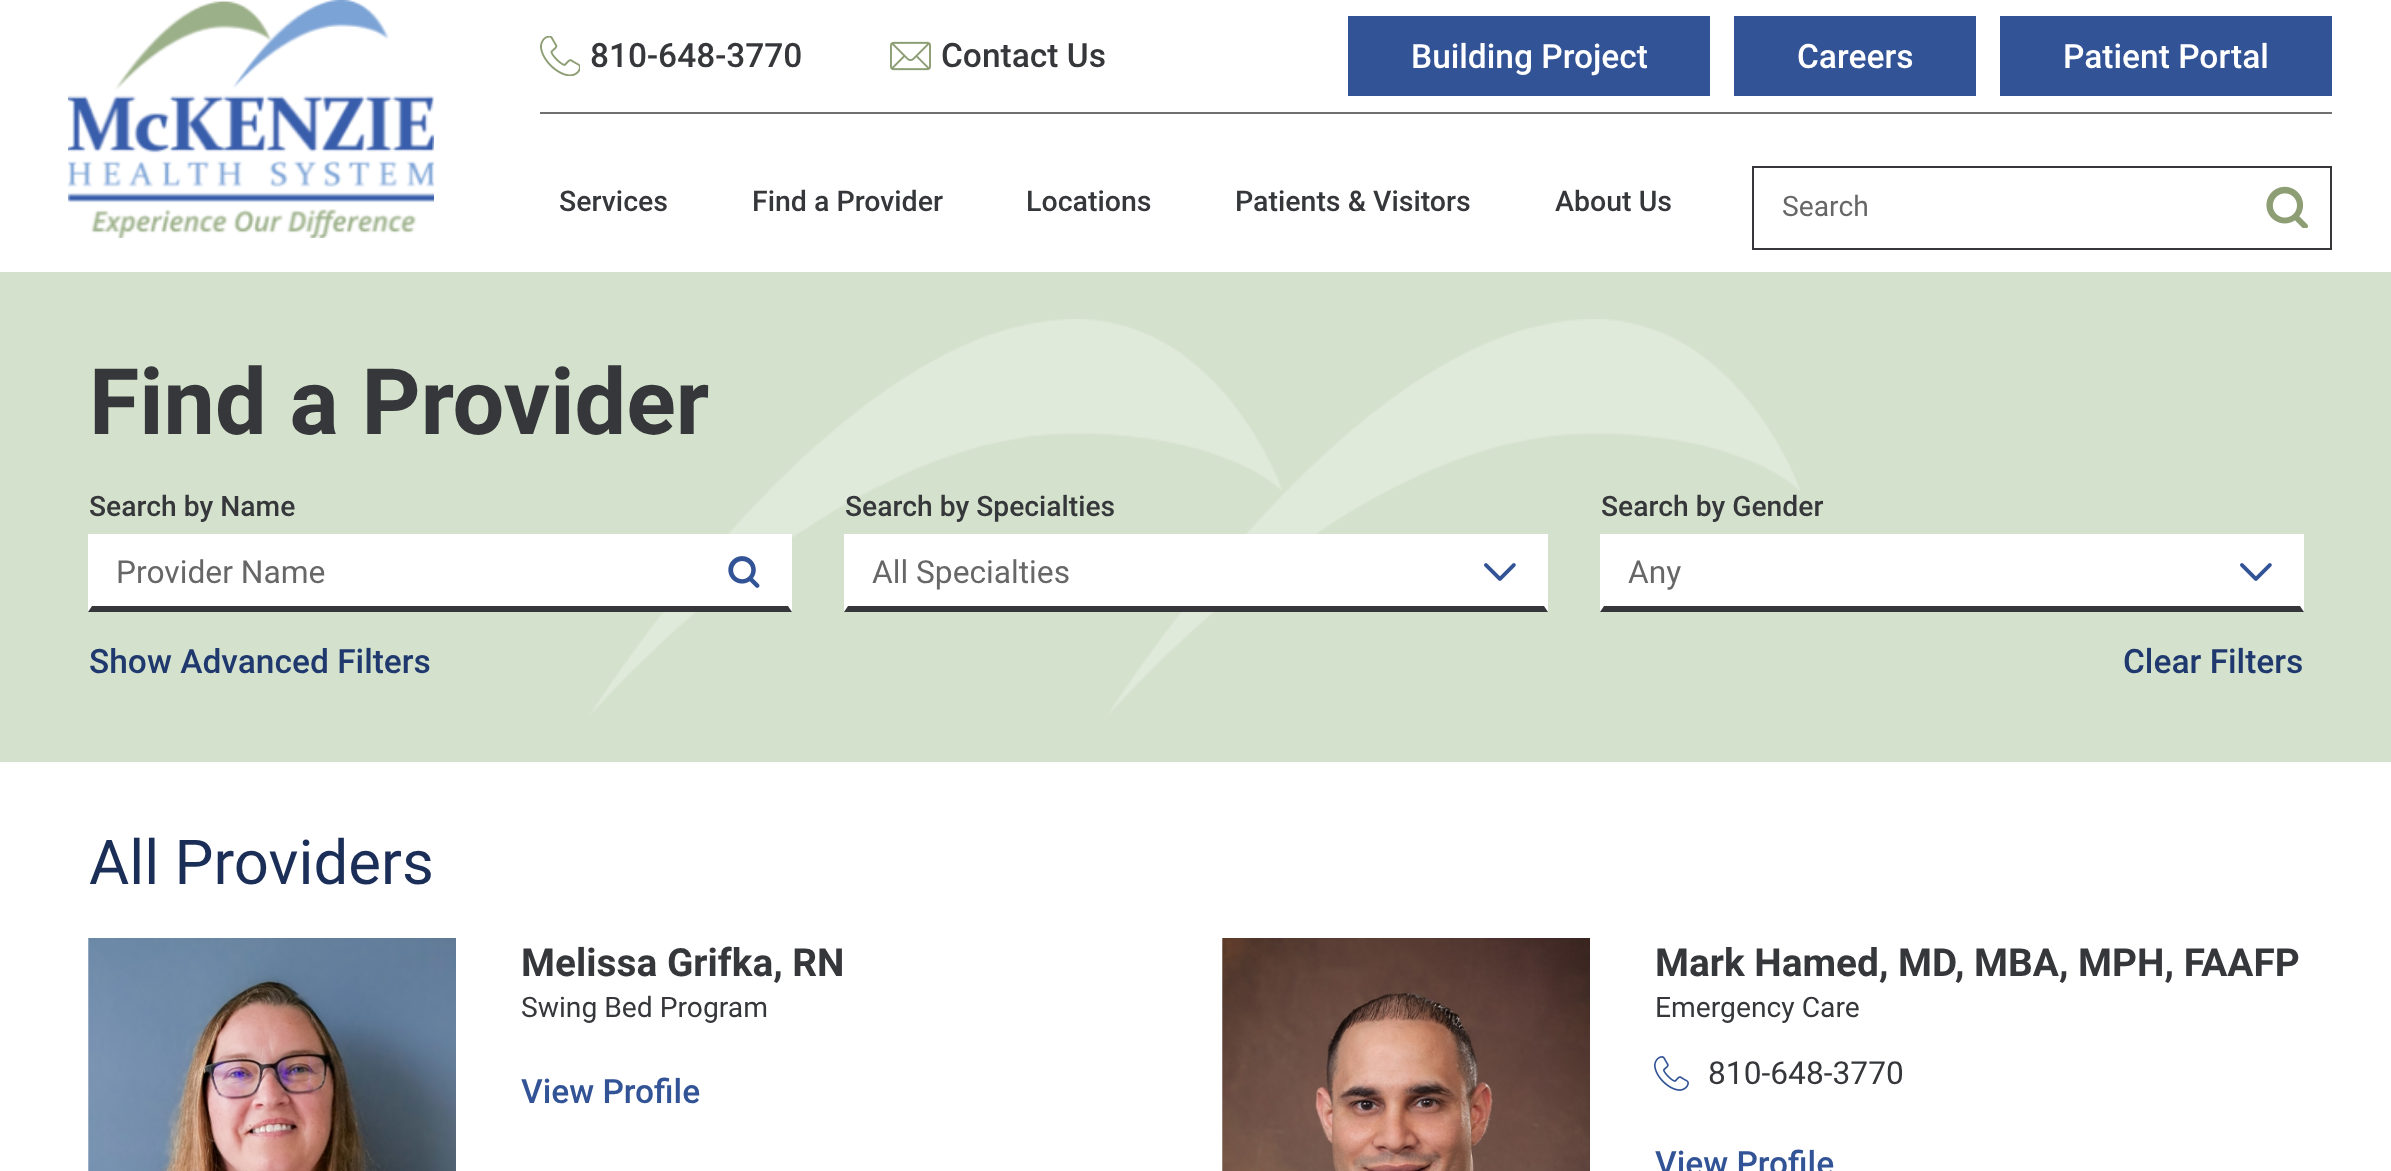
async function draw(canvas) {
	canvas.width = 2391;
	canvas.height = 1171;
	const c = canvas.getContext('2d');
	c.miterLimit = 4;
	c.fontKerning = 'normal';
	async function loadImage(src) {
		const img = new Image();
		img.src = src;
		await img.decode();
		return img;
	}

	c.fillStyle = '#fff';
	c.fillRect(0, 0, 2391, 1171);
	c.drawImage(await loadImage('img1.png'), 68, 0, 366, 238);
	c.fillStyle = '#707070';
	c.fillRect(540, 112, 1792, 2);
	c.drawImage(await loadImage('img2.png'), 540, 36, 40, 40);
	c.font = '500 33.5px Roboto';
	c.fillStyle = '#35373a';
	c.fillText('810-648-3770', 590, 67);
	c.drawImage(await loadImage('img3.png'), 890, 41, 41, 30);
	c.fillText('Contact Us', 941, 67);
	c.fillStyle = '#325395';
	c.fillRect(1348, 16, 362, 80);
	c.fillStyle = '#fff';
	c.fillText('Building Project', 1411, 68);
	c.fillStyle = '#325395';
	c.fillRect(1734, 16, 242, 80);
	c.fillStyle = '#fff';
	c.fillText('Careers', 1797, 68);
	c.fillStyle = '#325395';
	c.fillRect(2000, 16, 332, 80);
	c.fillStyle = '#fff';
	c.fillText('Patient Portal', 2063, 68);
	c.font = '500 28.5px Roboto';
	c.fillStyle = '#35373a';
	for (const [text, x, y] of [
		['Services', 559, 211],
		['Find a Provider', 752, 211],
		['Locations', 1026, 211],
		['Patients & Visitors', 1235, 211],
		['About Us', 1555, 211],
	]) {
		c.fillText(text, x, y);
	}
	c.strokeStyle = '#35373a';
	c.lineWidth = 2;
	c.strokeRect(1753, 167, 578, 82);
	c.font = '28.25px Roboto';
	c.fillStyle = '#676767';
	c.fillText('Search', 1782, 216);
	c.drawImage(await loadImage('img4.png'), 2266, 186, 42, 42);
	c.fillStyle = '#d4e1cc';
	c.fillRect(0, 272, 2391, 490);
	c.drawImage(await loadImage('img5.png'), 590, 319, 1210, 396);
	c.font = 'bold 91.75px Roboto';
	c.fillStyle = '#35373a';
	c.fillText('Find a Provider', 89, 434);
	c.font = '500 28.25px Roboto';
	c.fillText('Search by Name', 89, 516);
	c.fillStyle = '#fff';
	c.fillRect(88, 534, 704, 78);
	c.fillStyle = '#35373a';
	c.beginPath();
	c.moveTo(792, 612);
	c.lineTo(88, 612);
	c.lineTo(92, 606);
	c.lineTo(788, 606);
	c.closePath();
	c.fill();
	c.font = '31.75px Roboto';
	c.fillStyle = '#676767';
	c.fillText('Provider Name', 116, 583);
	c.drawImage(await loadImage('img6.png'), 728, 556, 32, 32);
	c.font = '500 28.25px Roboto';
	c.fillStyle = '#35373a';
	c.fillText('Search by Specialties', 845, 516);
	c.fillStyle = '#fff';
	c.fillRect(844, 534, 704, 78);
	c.fillStyle = '#35373a';
	c.beginPath();
	c.moveTo(1548, 612);
	c.lineTo(844, 612);
	c.lineTo(848, 606);
	c.lineTo(1544, 606);
	c.closePath();
	c.fill();
	c.font = '31.75px Roboto';
	c.fillStyle = '#676767';
	c.fillText('All Specialties', 872, 583);
	c.drawImage(await loadImage('img7.png'), 1484, 563, 32, 18);
	c.font = '500 28.25px Roboto';
	c.fillStyle = '#35373a';
	c.fillText('Search by Gender', 1601, 516);
	c.fillStyle = '#fff';
	c.fillRect(1600, 534, 704, 78);
	c.fillStyle = '#35373a';
	c.beginPath();
	c.moveTo(2304, 612);
	c.lineTo(1600, 612);
	c.lineTo(1604, 606);
	c.lineTo(2300, 606);
	c.closePath();
	c.fill();
	c.font = '31.75px Roboto';
	c.fillStyle = '#676767';
	c.fillText('Any', 1628, 583);
	c.drawImage(await loadImage('img7.png'), 2240, 563, 32, 18);
	c.font = '500 33.5px Roboto';
	c.fillStyle = '#1f396f';
	c.fillText('Show Advanced Filters', 89, 673);
	c.fillText('Clear Filters', 2123, 673);
	c.font = '61.75px Roboto';
	c.fillStyle = '#1a2e57';
	c.fillText('All Providers', 89, 884);
	c.drawImage(await loadImage('img8.png'), 88, 938, 368, 233);
	c.font = 'bold 38.8px Roboto';
	c.fillStyle = '#35373a';
	c.fillText('Melissa Grifka, RN', 521, 976);
	c.font = '28.25px Roboto';
	c.fillText('Swing Bed Program', 521, 1017);
	c.font = '500 33.5px Roboto';
	c.fillStyle = '#325395';
	c.fillText('View Profile', 521, 1103);
	c.drawImage(await loadImage('img9.png'), 1222, 938, 368, 233);
	c.font = 'bold 38.8px Roboto';
	c.fillStyle = '#35373a';
	c.fillText('Mark Hamed, MD, MBA, MPH, FAAFP', 1655, 976);
	c.font = '28.25px Roboto';
	c.fillText('Emergency Care', 1655, 1017);
	c.drawImage(await loadImage('img10.png'), 1654, 1056, 35, 35);
	c.font = '31.75px Roboto';
	c.fillText('810-648-3770', 1708, 1084);
	c.font = '500 33.5px Roboto';
	c.fillStyle = '#325395';
	c.fillText('View Profile', 1655, 1175);
}

draw(document.querySelector('canvas'));
